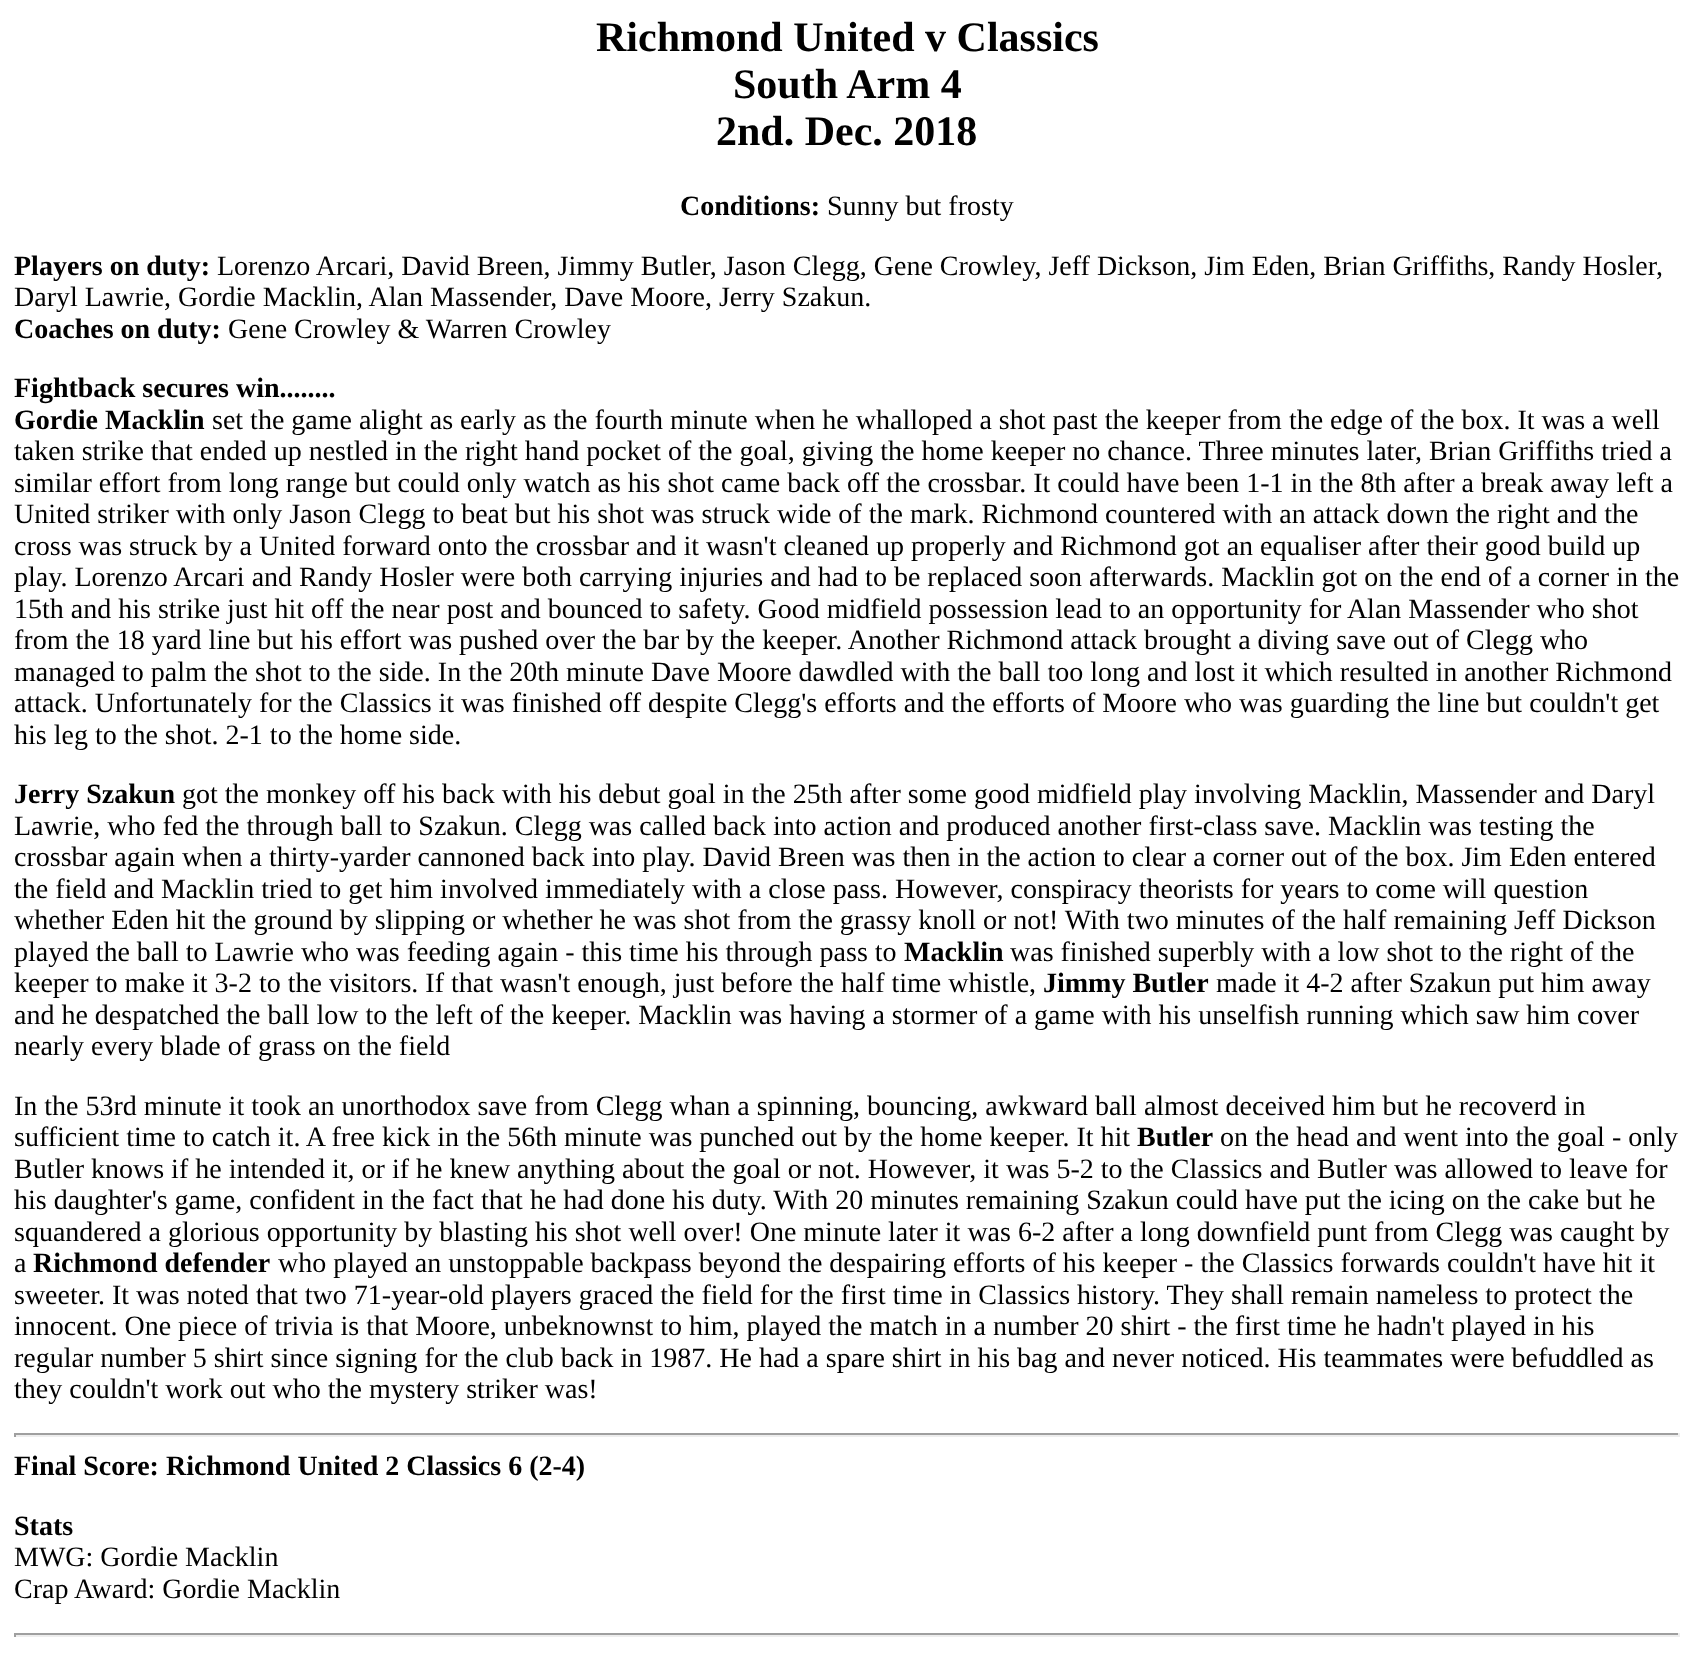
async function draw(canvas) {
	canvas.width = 1694;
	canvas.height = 1658;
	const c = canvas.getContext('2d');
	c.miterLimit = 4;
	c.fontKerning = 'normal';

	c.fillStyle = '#fff';
	c.fillRect(0, 0, 1694, 1658);
	c.font = 'bold 42px Liberation Serif';
	c.fillStyle = '#000';
	for (const [text, x, y] of [
		['Richmond United v Classics', 596, 51],
		['South Arm 4', 733, 98],
		['2nd. Dec. 2018', 716, 145],
	]) {
		c.fillText(text, x, y);
	}
	c.font = 'bold 28px Liberation Serif';
	c.fillText('Conditions:', 680, 215);
	c.font = '28px Liberation Serif';
	c.fillText('Sunny but frosty', 827, 215);
	c.font = 'bold 28px Liberation Serif';
	c.fillText('Players on duty:', 14, 275);
	c.font = '28px Liberation Serif';
	c.fillText('Lorenzo Arcari, David Breen, Jimmy Butler, Jason Clegg, Gene Crowley, Jeff Dickson, Jim Eden, Brian Griffiths, Randy Hosler,', 217, 275);
	c.fillText('Daryl Lawrie, Gordie Macklin, Alan Massender, Dave Moore, Jerry Szakun.', 14, 306);
	c.font = 'bold 28px Liberation Serif';
	c.fillText('Coaches on duty:', 14, 338);
	c.font = '28px Liberation Serif';
	c.fillText('Gene Crowley & Warren Crowley', 228, 338);
	c.font = 'bold 28px Liberation Serif';
	c.fillText('Fightback secures win........', 14, 397);
	c.fillText('Gordie Macklin', 14, 429);
	c.font = '28px Liberation Serif';
	for (const [text, x, y] of [
		['set the game alight as early as the fourth minute when he whalloped a shot past the keeper from the edge of the box. It was a well', 212, 429],
		['taken strike that ended up nestled in the right hand pocket of the goal, giving the home keeper no chance. Three minutes later, Brian Griffiths tried a', 14, 460],
		['similar effort from long range but could only watch as his shot came back off the crossbar. It could have been 1-1 in the 8th after a break away left a', 14, 492],
		['United striker with only Jason Clegg to beat but his shot was struck wide of the mark. Richmond countered with an attack down the right and the', 14, 523],
		['cross was struck by a United forward onto the crossbar and it wasn\'t cleaned up properly and Richmond got an equaliser after their good build up', 14, 555],
		['play. Lorenzo Arcari and Randy Hosler were both carrying injuries and had to be replaced soon afterwards. Macklin got on the end of a corner in the', 14, 586],
		['15th and his strike just hit off the near post and bounced to safety. Good midfield possession lead to an opportunity for Alan Massender who shot', 14, 618],
		['from the 18 yard line but his effort was pushed over the bar by the keeper. Another Richmond attack brought a diving save out of Clegg who', 14, 649],
		['managed to palm the shot to the side. In the 20th minute Dave Moore dawdled with the ball too long and lost it which resulted in another Richmond', 14, 681],
		['attack. Unfortunately for the Classics it was finished off despite Clegg\'s efforts and the efforts of Moore who was guarding the line but couldn\'t get', 14, 712],
		['his leg to the shot. 2-1 to the home side.', 14, 744],
	]) {
		c.fillText(text, x, y);
	}
	c.font = 'bold 28px Liberation Serif';
	c.fillText('Jerry Szakun', 14, 803);
	c.font = '28px Liberation Serif';
	for (const [text, x, y] of [
		['got the monkey off his back with his debut goal in the 25th after some good midfield play involving Macklin, Massender and Daryl', 182, 803],
		['Lawrie, who fed the through ball to Szakun. Clegg was called back into action and produced another first-class save. Macklin was testing the', 14, 835],
		['crossbar again when a thirty-yarder cannoned back into play. David Breen was then in the action to clear a corner out of the box. Jim Eden entered', 14, 866],
		['the field and Macklin tried to get him involved immediately with a close pass. However, conspiracy theorists for years to come will question', 14, 898],
		['whether Eden hit the ground by slipping or whether he was shot from the grassy knoll or not! With two minutes of the half remaining Jeff Dickson', 14, 929],
		['played the ball to Lawrie who was feeding again - this time his through pass to', 14, 961],
	]) {
		c.fillText(text, x, y);
	}
	c.font = 'bold 28px Liberation Serif';
	c.fillText('Macklin', 904, 961);
	c.font = '28px Liberation Serif';
	c.fillText('was finished superbly with a low shot to the right of the', 1010, 961);
	c.fillText('keeper to make it 3-2 to the visitors. If that wasn\'t enough, just before the half time whistle,', 14, 992);
	c.font = 'bold 28px Liberation Serif';
	c.fillText('Jimmy Butler', 1043, 992);
	c.font = '28px Liberation Serif';
	for (const [text, x, y] of [
		['made it 4-2 after Szakun put him away', 1216, 992],
		['and he despatched the ball low to the left of the keeper. Macklin was having a stormer of a game with his unselfish running which saw him cover', 14, 1024],
		['nearly every blade of grass on the field', 14, 1055],
		['In the 53rd minute it took an unorthodox save from Clegg whan a spinning, bouncing, awkward ball almost deceived him but he recoverd in', 14, 1115],
		['sufficient time to catch it. A free kick in the 56th minute was punched out by the home keeper. It hit', 14, 1146],
	]) {
		c.fillText(text, x, y);
	}
	c.font = 'bold 28px Liberation Serif';
	c.fillText('Butler', 1137, 1146);
	c.font = '28px Liberation Serif';
	for (const [text, x, y] of [
		['on the head and went into the goal - only', 1220, 1146],
		['Butler knows if he intended it, or if he knew anything about the goal or not. However, it was 5-2 to the Classics and Butler was allowed to leave for', 14, 1178],
		['his daughter\'s game, confident in the fact that he had done his duty. With 20 minutes remaining Szakun could have put the icing on the cake but he', 14, 1209],
		['squandered a glorious opportunity by blasting his shot well over! One minute later it was 6-2 after a long downfield punt from Clegg was caught by', 14, 1241],
		['a', 14, 1272],
	]) {
		c.fillText(text, x, y);
	}
	c.font = 'bold 28px Liberation Serif';
	c.fillText('Richmond defender', 33, 1272);
	c.font = '28px Liberation Serif';
	for (const [text, x, y] of [
		['who played an unstoppable backpass beyond the despairing efforts of his keeper - the Classics forwards couldn\'t have hit it', 278, 1272],
		['sweeter. It was noted that two 71-year-old players graced the field for the first time in Classics history. They shall remain nameless to protect the', 14, 1304],
		['innocent. One piece of trivia is that Moore, unbeknownst to him, played the match in a number 20 shirt - the first time he hadn\'t played in his', 14, 1335],
		['regular number 5 shirt since signing for the club back in 1987. He had a spare shirt in his bag and never noticed. His teammates were befuddled as', 14, 1367],
		['they couldn\'t work out who the mystery striker was!', 14, 1398],
	]) {
		c.fillText(text, x, y);
	}
	for (const [x, y, w, h, color] of [
		[14, 1433, 1666, 2, '#9f9f9f'],
		[1678, 1433, 2, 4, '#eee'],
		[14, 1435, 1666, 2, '#eee'],
		[14, 1433, 2, 4, '#9f9f9f'],
	]) {
		c.fillStyle = color;
		c.fillRect(x, y, w, h);
	}
	c.font = 'bold 28px Liberation Serif';
	c.fillStyle = '#000';
	c.fillText('Final Score: Richmond United 2 Classics 6 (2-4)', 14, 1475);
	c.fillText('Stats', 14, 1535);
	c.font = '28px Liberation Serif';
	c.fillText('MWG: Gordie Macklin', 14, 1566);
	c.fillText('Crap Award: Gordie Macklin', 14, 1598);
	for (const [x, y, w, h, color] of [
		[14, 1633, 1666, 2, '#9f9f9f'],
		[1678, 1633, 2, 4, '#eee'],
		[14, 1635, 1666, 2, '#eee'],
		[14, 1633, 2, 4, '#9f9f9f'],
	]) {
		c.fillStyle = color;
		c.fillRect(x, y, w, h);
	}
}

draw(document.querySelector('canvas'));
